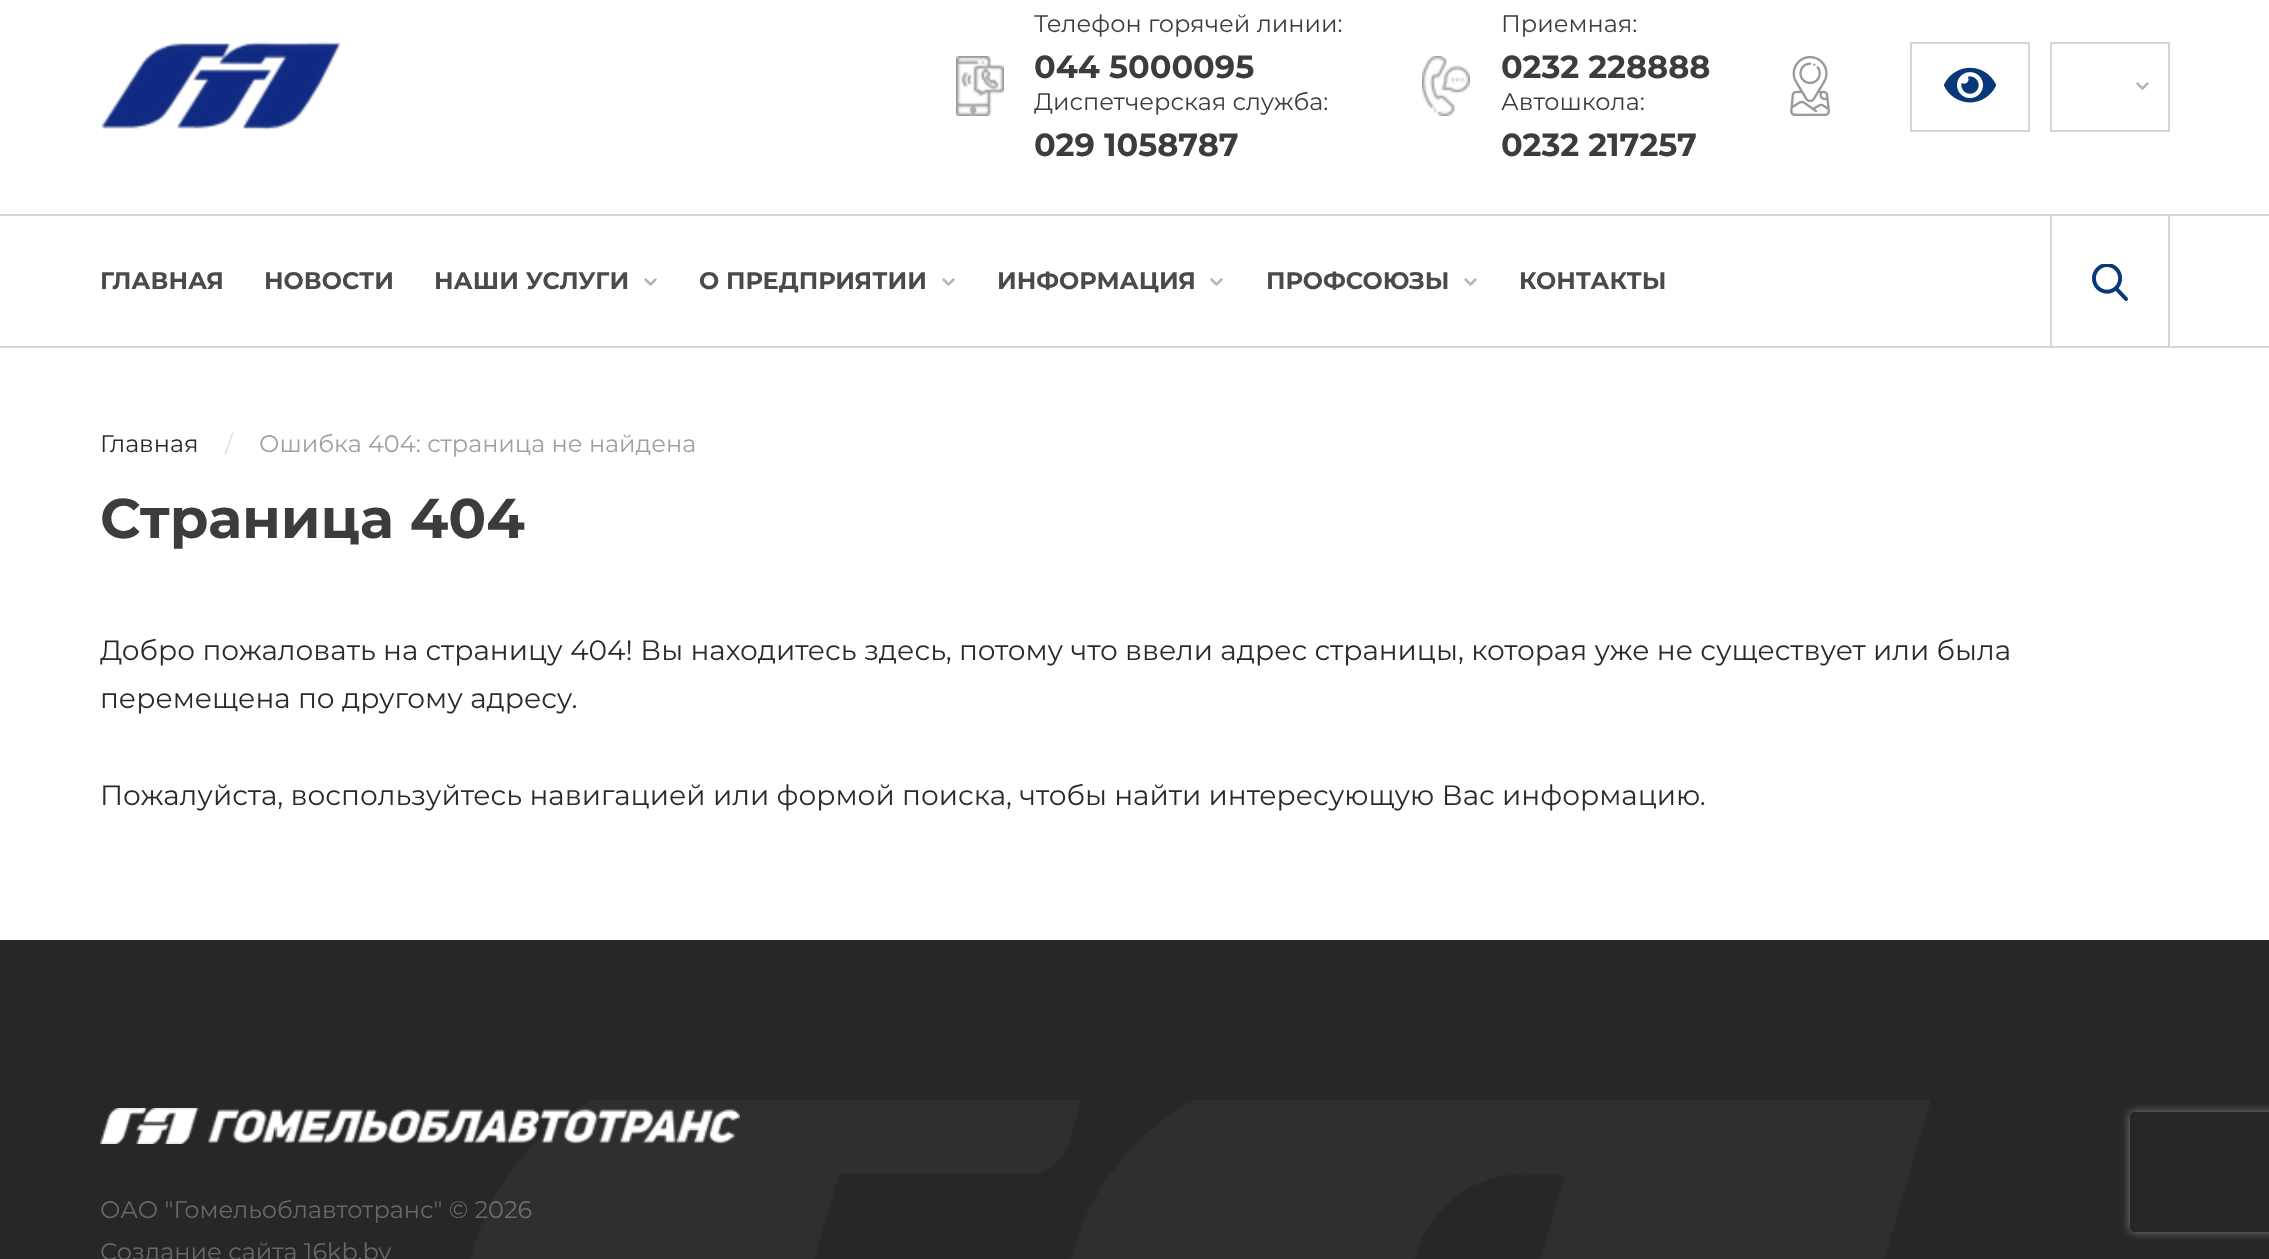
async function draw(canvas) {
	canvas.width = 2269;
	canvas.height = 1259;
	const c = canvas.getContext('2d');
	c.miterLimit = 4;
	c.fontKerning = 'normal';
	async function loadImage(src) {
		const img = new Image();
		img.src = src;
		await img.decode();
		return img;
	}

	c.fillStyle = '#fff';
	c.fillRect(0, 0, 2269, 1259);
	c.drawImage(await loadImage('img1.png'), 101, 41, 239, 89);
	c.drawImage(await loadImage('img2.png'), 956, 56, 48, 60);
	c.font = '24px Montserrat';
	c.fillStyle = '#3c3c3c';
	c.fillText('Телефон горячей линии:', 1034, 32);
	c.font = 'bold 32px Montserrat';
	c.fillText('044 5000095', 1034, 78);
	c.font = '24px Montserrat';
	c.fillText('Диспетчерская служба:', 1034, 110);
	c.font = 'bold 32px Montserrat';
	c.fillText('029 1058787', 1034, 156);
	c.drawImage(await loadImage('img3.png'), 1422, 56, 48, 60);
	c.font = '24px Montserrat';
	c.fillText('Приемная:', 1501, 32);
	c.font = 'bold 32px Montserrat';
	c.fillText('0232 228888', 1501, 78);
	c.font = '24px Montserrat';
	c.fillText('Автошкола:', 1501, 110);
	c.font = 'bold 32px Montserrat';
	c.fillText('0232 217257', 1501, 156);
	c.drawImage(await loadImage('img4.png'), 1790, 56, 40, 60);
	c.strokeStyle = '#d5d5d5';
	c.lineWidth = 2;
	c.strokeRect(1911, 43, 118, 88);
	c.drawImage(await loadImage('img5.png'), 1944, 67, 52, 36);
	c.strokeRect(2051, 43, 118, 88);
	c.beginPath();
	c.moveTo(2147.5, 83.5);
	c.lineTo(2142.5, 88.5);
	c.lineTo(2137.5, 83.5);
	c.strokeStyle = '#b4b6b7';
	c.lineWidth = 2.5;
	c.lineCap = 'round';
	c.lineJoin = 'round';
	c.stroke();
	c.fillStyle = '#d5d5d5';
	c.fillRect(0, 214, 2269, 2);
	c.fillRect(0, 346, 2269, 2);
	c.font = 'bold 24px Montserrat';
	c.fillStyle = '#4a4a4a';
	for (const [text, x, y] of [
		['ГЛАВНАЯ', 100, 289],
		['НОВОСТИ', 264, 289],
		['НАШИ УСЛУГИ', 434, 289],
	]) {
		c.fillText(text, x, y);
	}
	c.beginPath();
	c.moveTo(655.5, 279.5);
	c.lineTo(650.5, 284.5);
	c.lineTo(645.5, 279.5);
	c.stroke();
	c.fillText('О ПРЕДПРИЯТИИ', 699, 289);
	c.beginPath();
	c.moveTo(953.5, 279.5);
	c.lineTo(948.5, 284.5);
	c.lineTo(943.5, 279.5);
	c.stroke();
	c.fillText('ИНФОРМАЦИЯ', 997, 289);
	c.beginPath();
	c.moveTo(1221.5, 279.5);
	c.lineTo(1216.5, 284.5);
	c.lineTo(1211.5, 279.5);
	c.stroke();
	c.fillText('ПРОФСОЮЗЫ', 1266, 289);
	c.beginPath();
	c.moveTo(1475.5, 279.5);
	c.lineTo(1470.5, 284.5);
	c.lineTo(1465.5, 279.5);
	c.stroke();
	c.fillText('КОНТАКТЫ', 1519, 289);
	c.fillStyle = '#d5d5d5';
	c.fillRect(2168, 216, 2, 130);
	c.fillRect(2050, 216, 2, 130);
	c.drawImage(await loadImage('img6.png'), 2092, 264, 36, 37);
	c.font = '24px Montserrat';
	c.fillStyle = '#2a2a2a';
	c.fillText('Главная', 100, 452);
	c.fillStyle = '#e1e1e1';
	c.fillText('/', 225, 452);
	c.fillStyle = '#a0a0a0';
	c.fillText('Ошибка 404: страница не найдена', 259, 452);
	c.font = 'bold 56px Montserrat';
	c.fillStyle = '#3c3c3c';
	c.fillText('Страница 404', 100, 538);
	c.font = '28px Montserrat';
	c.fillStyle = '#2a2a2a';
	for (const [text, x, y] of [
		['Добро пожаловать на страницу 404! Вы находитесь здесь, потому что ввели адрес страницы, которая уже не существует или была', 100, 660],
		['перемещена по другому адресу.', 100, 708],
		['Пожалуйста, воспользуйтесь навигацией или формой поиска, чтобы найти интересующую Вас информацию.', 100, 805],
	]) {
		c.fillText(text, x, y);
	}
	c.fillStyle = '#272727';
	c.fillRect(0, 940, 2269, 319);
	c.drawImage(await loadImage('img7.png'), 100, 1108, 640, 36);
	c.font = '24px Montserrat';
	c.fillStyle = '#686868';
	c.fillText('ОАО "Гомельоблавтотранс" © 2026', 100, 1218);
	c.fillText('Создание сайта 16kb.by', 100, 1260);
	c.drawImage(await loadImage('img8.png'), 470, 1100, 1460, 159);
	c.save();
	c.beginPath();
	c.moveTo(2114, 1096);
	c.lineTo(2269, 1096);
	c.lineTo(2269, 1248);
	c.lineTo(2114, 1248);
	c.closePath();
	c.moveTo(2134, 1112);
	c.lineTo(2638, 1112);
	c.bezierCurveTo(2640, 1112, 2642, 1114, 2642, 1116);
	c.lineTo(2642, 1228);
	c.bezierCurveTo(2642, 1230, 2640, 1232, 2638, 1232);
	c.lineTo(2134, 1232);
	c.bezierCurveTo(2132, 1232, 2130, 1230, 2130, 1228);
	c.lineTo(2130, 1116);
	c.bezierCurveTo(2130, 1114, 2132, 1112, 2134, 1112);
	c.closePath();
	c.clip('evenodd');
	c.fillStyle = '#808080';
	c.filter = 'blur(5px)';
	c.beginPath();
	c.roundRect(2130, 1112, 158, 120, 4);
	c.fill();
	c.filter = 'none';
	c.restore();
}

draw(document.querySelector('canvas'));
